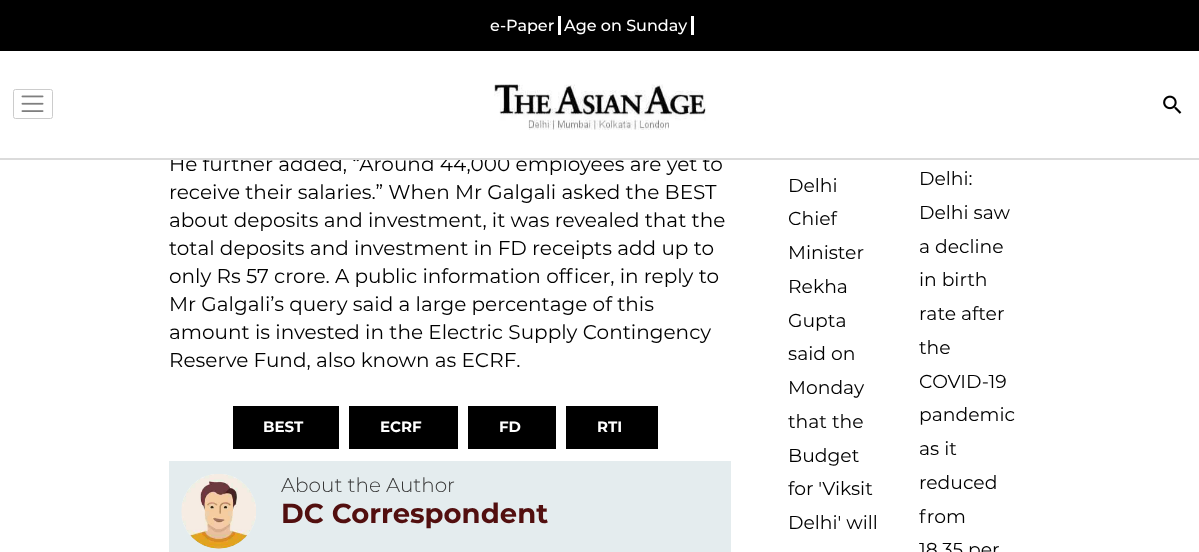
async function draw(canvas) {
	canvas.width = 1199;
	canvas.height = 552;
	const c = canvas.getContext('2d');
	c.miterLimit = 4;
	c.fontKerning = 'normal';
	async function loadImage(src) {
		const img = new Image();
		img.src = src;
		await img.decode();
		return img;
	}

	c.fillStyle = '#fff';
	c.fillRect(0, 0, 1199, 552);
	c.font = '20px Montserrat';
	c.fillStyle = '#000';
	c.fillText('He further added, “Around 44,000 employees are yet to', 169, 171);
	c.fillStyle = '#fff';
	c.fillRect(171, 156, 395, 2);
	c.fillStyle = '#000';
	c.fillRect(0, 0, 1199, 51);
	c.font = '500 16px Montserrat';
	c.fillStyle = '#fff';
	c.fillText('e-Paper', 490, 31);
	c.fillRect(558, 16, 3, 19);
	c.fillText('Age on Sunday', 564, 31);
	c.fillRect(691, 16, 3, 19);
	c.fillStyle = '#dbdbdb';
	c.fillRect(0, 158, 1199, 2);
	c.drawImage(await loadImage('img1.png'), 21, 95, 23, 17);
	c.beginPath();
	c.roundRect(13.5, 89.5, 39, 29, 2);
	c.strokeStyle = '#ccc';
	c.stroke();
	c.drawImage(await loadImage('img2.png'), 494, 84, 212, 46);
	c.drawImage(await loadImage('img3.png'), 1163, 95, 19, 19);
	c.font = '20px Montserrat';
	c.fillStyle = '#000';
	for (const [text, x, y] of [
		['receive their salaries.” When Mr Galgali asked the BEST', 169, 199],
		['about deposits and investment, it was revealed that the', 169, 227],
		['total deposits and investment in FD receipts add up to', 169, 255],
		['only Rs 57 crore. A public information officer, in reply to', 169, 283],
		['Mr Galgali’s query said a large percentage of this', 169, 311],
		['amount is invested in the Electric Supply Contingency', 169, 339],
		['Reserve Fund, also known as ECRF.', 169, 367],
	]) {
		c.fillText(text, x, y);
	}
	c.fillRect(233, 406, 106, 43);
	c.font = 'bold 15px Montserrat';
	c.fillStyle = '#fff';
	c.fillText('BEST', 263, 432);
	c.fillStyle = '#000';
	c.fillRect(349, 406, 109, 43);
	c.fillStyle = '#fff';
	c.fillText('ECRF', 380, 432);
	c.fillStyle = '#000';
	c.fillRect(468, 406, 88, 43);
	c.fillStyle = '#fff';
	c.fillText('FD', 499, 432);
	c.fillStyle = '#000';
	c.fillRect(566, 406, 92, 43);
	c.fillStyle = '#fff';
	c.fillText('RTI', 597, 432);
	c.fillStyle = '#e4ecee';
	c.fillRect(169, 461, 562, 91);
	c.drawImage(await loadImage('img4.png'), 181, 474, 75, 75);
	c.font = '300 20px Montserrat';
	c.fillStyle = '#363636';
	c.fillText('About the Author', 281, 492);
	c.font = 'bold 27.5px Montserrat';
	c.fillStyle = '#520f0f';
	c.fillText('DC Correspondent', 281, 523);
	c.font = '18.75px Montserrat';
	c.fillStyle = '#000';
	for (const [text, x, y] of [
		['Delhi', 788, 192],
		['Chief', 788, 225],
		['Minister', 788, 259],
		['Rekha', 788, 293],
		['Gupta', 788, 327],
		['said on', 788, 360],
		['Monday', 788, 394],
		['that the', 788, 428],
		['Budget', 788, 462],
		['for \'Viksit', 788, 495],
		['Delhi\' will', 788, 529],
		['Delhi:', 919, 185],
		['Delhi saw', 919, 219],
		['a decline', 919, 253],
		['in birth', 919, 286],
		['rate after', 919, 320],
		['the', 919, 354],
		['COVID-19', 919, 388],
		['pandemic', 919, 421],
		['as it', 919, 455],
		['reduced', 919, 489],
		['from', 919, 523],
		['18.35 per', 919, 556],
	]) {
		c.fillText(text, x, y);
	}
}

draw(document.querySelector('canvas'));
